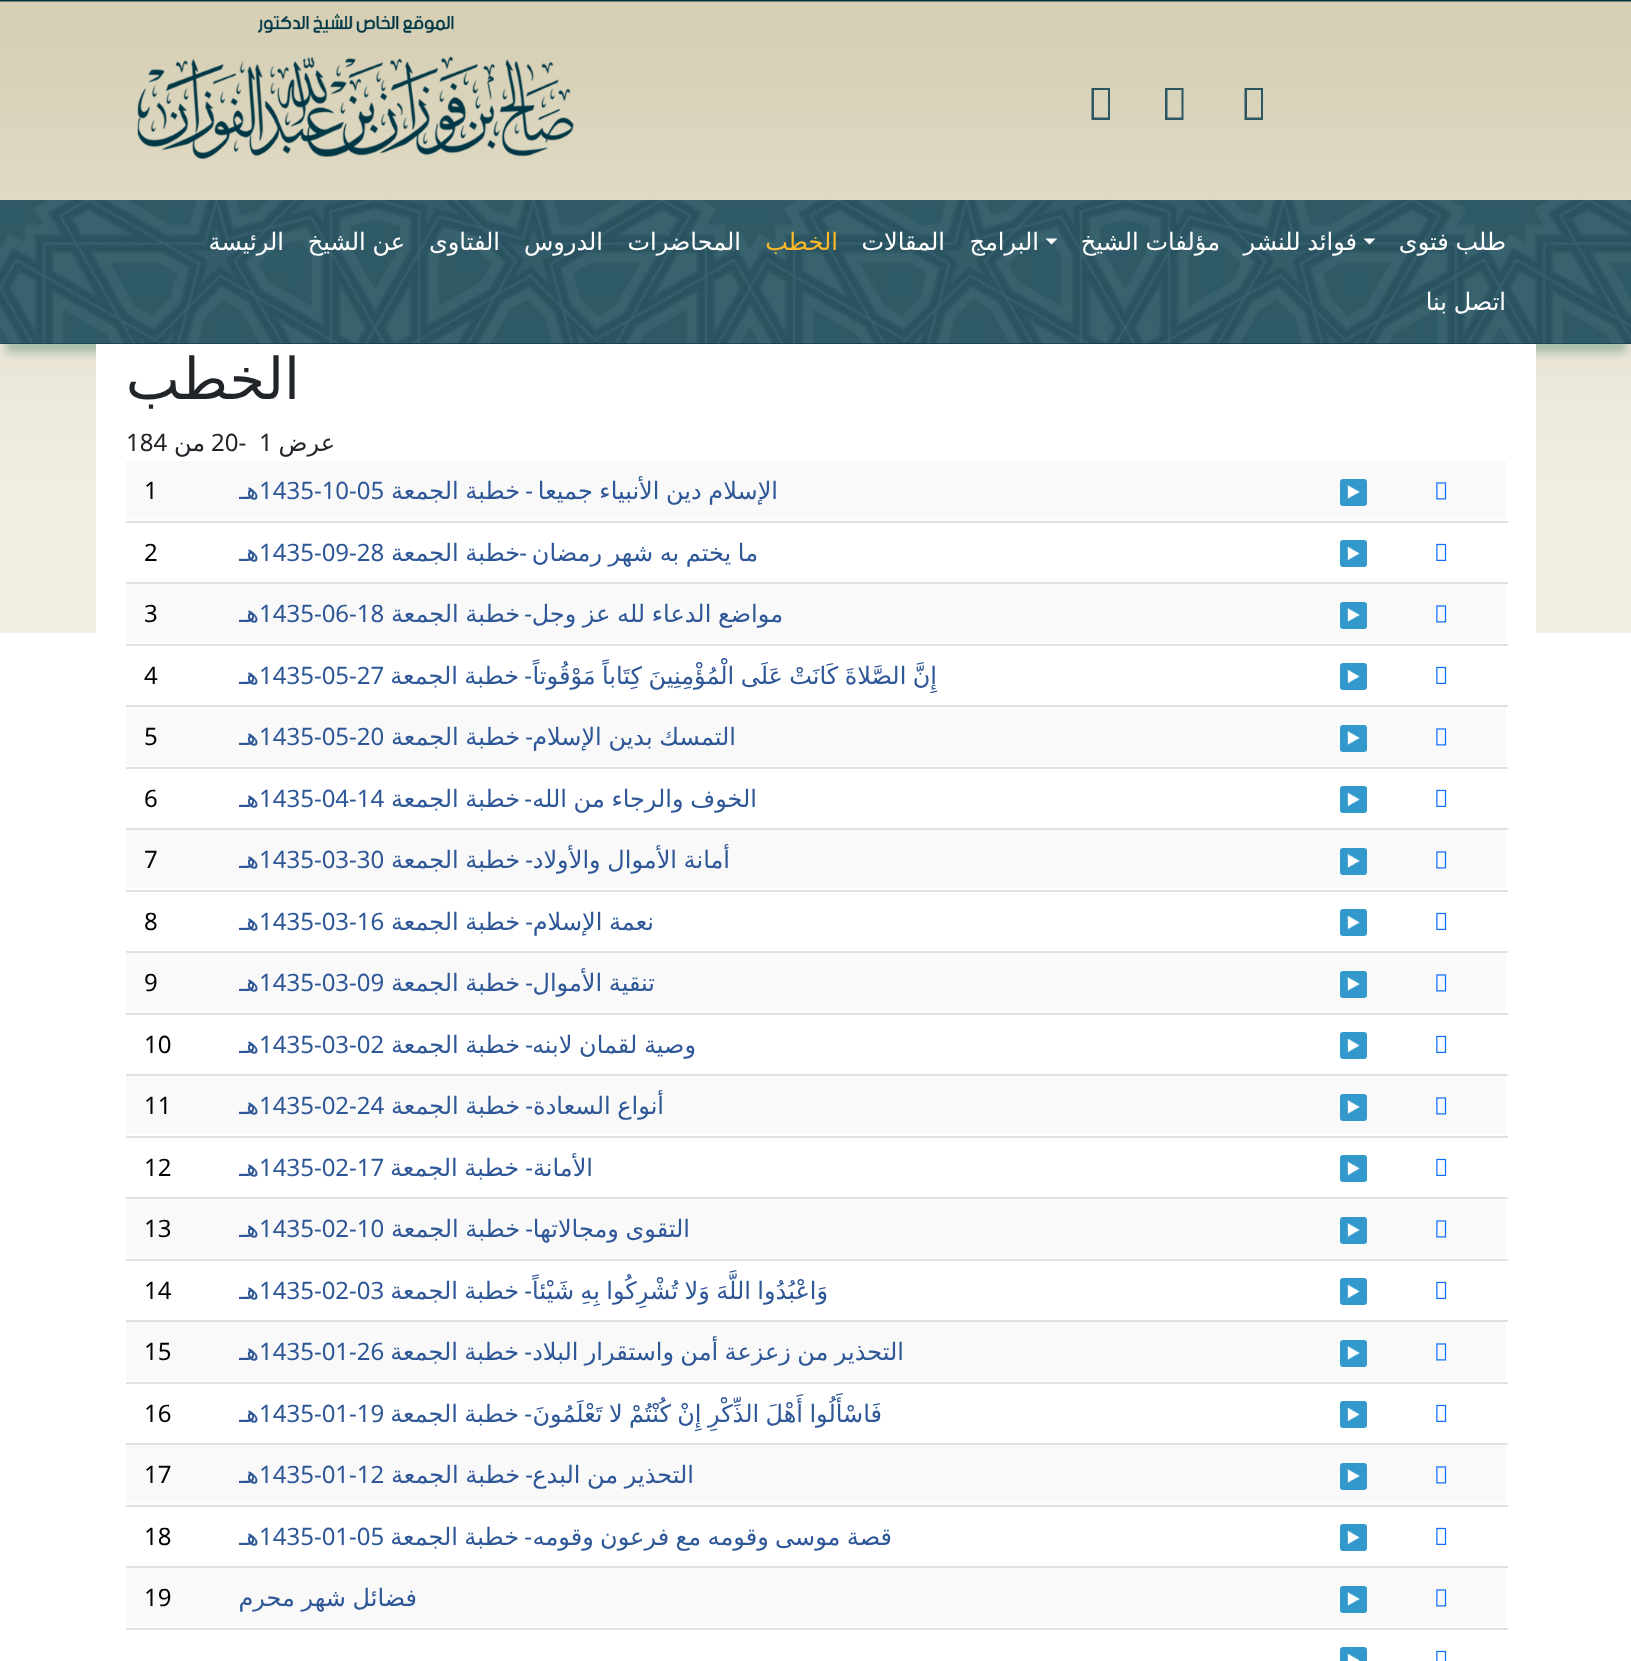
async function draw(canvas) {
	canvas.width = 1631;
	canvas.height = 1661;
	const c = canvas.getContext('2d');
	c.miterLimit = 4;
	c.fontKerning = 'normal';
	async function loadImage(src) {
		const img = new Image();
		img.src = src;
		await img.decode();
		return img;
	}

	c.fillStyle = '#fff';
	c.fillRect(0, 0, 1631, 1661);
	c.drawImage(await loadImage('img1.png'), 0, 0, 1631, 633);
	c.fillStyle = '#2b5662';
	c.beginPath();
	c.moveTo(1244.5, 120);
	c.lineTo(1244.5, 88);
	c.lineTo(1263, 88);
	c.lineTo(1263, 120);
	c.closePath();
	c.moveTo(1247, 117.5);
	c.lineTo(1261, 117.5);
	c.lineTo(1261, 90);
	c.lineTo(1247, 90);
	c.closePath();
	c.fill();
	c.beginPath();
	c.moveTo(1165, 120);
	c.lineTo(1165, 88);
	c.lineTo(1183.5, 88);
	c.lineTo(1183.5, 120);
	c.closePath();
	c.moveTo(1167.5, 117.5);
	c.lineTo(1181.5, 117.5);
	c.lineTo(1181.5, 90);
	c.lineTo(1167.5, 90);
	c.closePath();
	c.fill();
	c.beginPath();
	c.moveTo(1091.5, 120);
	c.lineTo(1091.5, 88);
	c.lineTo(1110, 88);
	c.lineTo(1110, 120);
	c.closePath();
	c.moveTo(1094, 117.5);
	c.lineTo(1108, 117.5);
	c.lineTo(1108, 90);
	c.lineTo(1094, 90);
	c.closePath();
	c.fill();
	c.drawImage(await loadImage('img2.png'), 137, 13, 437, 146);
	c.fillStyle = '#84a8959e';
	c.filter = 'blur(4px)';
	c.beginPath();
	c.rect(6, 221, 1620, 132);
	c.fill();
	c.filter = 'none';
	c.fillStyle = '#003746';
	c.fillRect(0, 200, 1631, 144);
	c.drawImage(await loadImage('img3.png'), 0, 199, 1631, 145);
	c.wordSpacing = '-1px';
	c.direction = 'rtl';
	c.font = '24px DejaVu Sans';
	c.fillStyle = '#fff';
	c.fillText('طلب فتوى', 1506, 250);
	c.beginPath();
	c.moveTo(1363.5, 238.5);
	c.lineTo(1375.5, 238.5);
	c.lineTo(1369.5, 244.5);
	c.closePath();
	c.fill();
	c.fillText('فوائد للنشر', 1357, 250);
	c.fillText('مؤلفات الشيخ', 1220, 250);
	c.beginPath();
	c.moveTo(1045.5, 238.5);
	c.lineTo(1057.5, 238.5);
	c.lineTo(1051.5, 244.5);
	c.closePath();
	c.fill();
	c.wordSpacing = '0px';
	c.fillText('البرامج', 1039, 250);
	c.fillText('المقالات', 945, 250);
	c.fillStyle = '#fdb928';
	c.fillText('الخطب', 838, 250);
	c.fillStyle = '#fff';
	for (const [text, x, y] of [
		['المحاضرات', 741, 250],
		['الدروس', 603, 250],
		['الفتاوى', 500, 250],
	]) {
		c.fillText(text, x, y);
	}
	c.wordSpacing = '-1px';
	c.fillText('عن الشيخ', 405, 250);
	c.wordSpacing = '0px';
	c.fillText('الرئيسة', 284, 250);
	c.wordSpacing = '-1px';
	c.fillText('اتصل بنا', 1506, 310);
	c.fillRect(96, 344, 1440, 289);
	c.wordSpacing = '0px';
	c.font = '57.5px DejaVu Sans';
	c.fillStyle = '#212529';
	c.fillText('الخطب', 300, 399);
	c.font = '24px DejaVu Sans';
	c.fillText('عرض', 335, 451);
	c.direction = 'ltr';
	c.font = '24px Noto Sans';
	c.fillText('1', 259, 451);
	c.fillText('20-', 211, 451);
	c.direction = 'rtl';
	c.font = '24px DejaVu Sans';
	c.fillText('من', 205, 451);
	c.direction = 'ltr';
	c.font = '24px Noto Sans';
	c.fillText('184', 126, 451);
	c.fillStyle = '#f9f9f9';
	c.fillRect(126, 461, 1380, 58);
	c.fillStyle = '#39c';
	c.beginPath();
	c.roundRect(1340, 479, 27, 27, 3);
	c.fill();
	c.drawImage(await loadImage('img4.png'), 1347, 485, 13, 14);
	c.wordSpacing = '-1px';
	c.direction = 'rtl';
	c.font = '24px DejaVu Sans';
	c.fillStyle = '#2e5797';
	c.fillText('الإسلام دين الأنبياء جميعا', 778, 499);
	c.wordSpacing = '0px';
	c.font = '24px Noto Sans';
	c.fillText('-', 533, 499);
	c.wordSpacing = '-1px';
	c.font = '24px DejaVu Sans';
	c.fillText('خطبة الجمعة', 520, 499);
	c.wordSpacing = '0px';
	c.direction = 'ltr';
	c.font = '24px Noto Sans';
	c.fillText('1435-10-05', 259, 499);
	c.direction = 'rtl';
	c.font = '24px DejaVu Sans';
	c.fillText('هـ', 259, 499);
	c.direction = 'ltr';
	c.font = '24px Noto Sans';
	c.fillStyle = '#000';
	c.fillText('1', 144, 499);
	c.fillStyle = '#dee2e6';
	c.fillRect(126, 521, 1382, 2);
	c.drawImage(await loadImage('img5.png'), 1436, 482, 11, 18);
	c.fillStyle = '#39c';
	c.beginPath();
	c.roundRect(1340, 540, 27, 27, 3);
	c.fill();
	c.drawImage(await loadImage('img6.png'), 1347, 546, 13, 15);
	c.wordSpacing = '-1px';
	c.direction = 'rtl';
	c.font = '24px DejaVu Sans';
	c.fillStyle = '#2e5797';
	c.fillText('ما يختم به شهر رمضان', 758, 561);
	c.wordSpacing = '0px';
	c.font = '24px Noto Sans';
	c.fillText('-', 527, 561);
	c.wordSpacing = '-1px';
	c.font = '24px DejaVu Sans';
	c.fillText('خطبة الجمعة', 520, 561);
	c.wordSpacing = '0px';
	c.direction = 'ltr';
	c.font = '24px Noto Sans';
	c.fillText('1435-09-28', 259, 561);
	c.direction = 'rtl';
	c.font = '24px DejaVu Sans';
	c.fillText('هـ', 259, 561);
	c.fillStyle = '#dee2e6';
	c.fillRect(126, 582, 1382, 2);
	c.drawImage(await loadImage('img7.png'), 1436, 543, 11, 18);
	c.direction = 'ltr';
	c.font = '24px Noto Sans';
	c.fillStyle = '#000';
	c.fillText('2', 144, 561);
	c.fillStyle = '#f9f9f9';
	c.fillRect(126, 584, 1380, 58);
	c.fillStyle = '#39c';
	c.beginPath();
	c.roundRect(1340, 602, 27, 27, 3);
	c.fill();
	c.drawImage(await loadImage('img4.png'), 1347, 608, 13, 14);
	c.wordSpacing = '-1px';
	c.direction = 'rtl';
	c.font = '24px DejaVu Sans';
	c.fillStyle = '#2e5797';
	c.fillText('مواضع الدعاء لله عز وجل', 783, 622);
	c.wordSpacing = '0px';
	c.font = '24px Noto Sans';
	c.fillText('-', 532, 622);
	c.wordSpacing = '-1px';
	c.font = '24px DejaVu Sans';
	c.fillText('خطبة الجمعة', 520, 622);
	c.wordSpacing = '0px';
	c.direction = 'ltr';
	c.font = '24px Noto Sans';
	c.fillText('1435-06-18', 259, 622);
	c.direction = 'rtl';
	c.font = '24px DejaVu Sans';
	c.fillText('هـ', 259, 622);
	c.direction = 'ltr';
	c.font = '24px Noto Sans';
	c.fillStyle = '#000';
	c.fillText('3', 144, 622);
	c.fillStyle = '#dee2e6';
	c.fillRect(126, 644, 1382, 2);
	c.drawImage(await loadImage('img5.png'), 1436, 605, 11, 18);
	c.fillStyle = '#39c';
	c.beginPath();
	c.roundRect(1340, 663, 27, 27, 3);
	c.fill();
	c.drawImage(await loadImage('img6.png'), 1347, 669, 13, 15);
	c.wordSpacing = '-1.25px';
	c.direction = 'rtl';
	c.font = '24px DejaVu Sans';
	c.fillStyle = '#2e5797';
	c.fillText('إِنَّ الصَّلاةَ كَانَتْ عَلَى الْمُؤْمِنِينَ كِتَاباً مَوْقُوتاً', 937, 684);
	c.wordSpacing = '0px';
	c.font = '24px Noto Sans';
	c.fillText('-', 532, 684);
	c.wordSpacing = '-1.25px';
	c.font = '24px DejaVu Sans';
	c.fillText('خطبة الجمعة', 519, 684);
	c.wordSpacing = '0px';
	c.direction = 'ltr';
	c.font = '24px Noto Sans';
	c.fillText('1435-05-27', 259, 684);
	c.direction = 'rtl';
	c.font = '24px DejaVu Sans';
	c.fillText('هـ', 259, 684);
	c.fillStyle = '#dee2e6';
	c.fillRect(126, 705, 1382, 2);
	c.drawImage(await loadImage('img7.png'), 1436, 666, 11, 18);
	c.direction = 'ltr';
	c.font = '24px Noto Sans';
	c.fillStyle = '#000';
	c.fillText('4', 144, 684);
	c.fillStyle = '#f9f9f9';
	c.fillRect(126, 707, 1380, 58);
	c.fillStyle = '#39c';
	c.beginPath();
	c.roundRect(1340, 725, 27, 27, 3);
	c.fill();
	c.drawImage(await loadImage('img4.png'), 1347, 731, 13, 14);
	c.wordSpacing = '-1px';
	c.direction = 'rtl';
	c.font = '24px DejaVu Sans';
	c.fillStyle = '#2e5797';
	c.fillText('التمسك بدين الإسلام', 736, 745);
	c.wordSpacing = '0px';
	c.font = '24px Noto Sans';
	c.fillText('-', 533, 745);
	c.wordSpacing = '-1px';
	c.font = '24px DejaVu Sans';
	c.fillText('خطبة الجمعة', 520, 745);
	c.wordSpacing = '0px';
	c.direction = 'ltr';
	c.font = '24px Noto Sans';
	c.fillText('1435-05-20', 259, 745);
	c.direction = 'rtl';
	c.font = '24px DejaVu Sans';
	c.fillText('هـ', 259, 745);
	c.direction = 'ltr';
	c.font = '24px Noto Sans';
	c.fillStyle = '#000';
	c.fillText('5', 144, 745);
	c.fillStyle = '#dee2e6';
	c.fillRect(126, 767, 1382, 2);
	c.drawImage(await loadImage('img5.png'), 1436, 728, 11, 18);
	c.fillStyle = '#39c';
	c.beginPath();
	c.roundRect(1340, 786, 27, 27, 3);
	c.fill();
	c.drawImage(await loadImage('img6.png'), 1347, 792, 13, 15);
	c.wordSpacing = '-1px';
	c.direction = 'rtl';
	c.font = '24px DejaVu Sans';
	c.fillStyle = '#2e5797';
	c.fillText('الخوف والرجاء من الله', 757, 807);
	c.wordSpacing = '0px';
	c.font = '24px Noto Sans';
	c.fillText('-', 532, 807);
	c.wordSpacing = '-1px';
	c.font = '24px DejaVu Sans';
	c.fillText('خطبة الجمعة', 520, 807);
	c.wordSpacing = '0px';
	c.direction = 'ltr';
	c.font = '24px Noto Sans';
	c.fillText('1435-04-14', 259, 807);
	c.direction = 'rtl';
	c.font = '24px DejaVu Sans';
	c.fillText('هـ', 259, 807);
	c.fillStyle = '#dee2e6';
	c.fillRect(126, 828, 1382, 2);
	c.drawImage(await loadImage('img7.png'), 1436, 789, 11, 18);
	c.direction = 'ltr';
	c.font = '24px Noto Sans';
	c.fillStyle = '#000';
	c.fillText('6', 144, 807);
	c.fillStyle = '#f9f9f9';
	c.fillRect(126, 830, 1380, 58);
	c.fillStyle = '#39c';
	c.beginPath();
	c.roundRect(1340, 848, 27, 27, 3);
	c.fill();
	c.drawImage(await loadImage('img4.png'), 1347, 854, 13, 14);
	c.wordSpacing = '-1px';
	c.direction = 'rtl';
	c.font = '24px DejaVu Sans';
	c.fillStyle = '#2e5797';
	c.fillText('أمانة الأموال والأولاد', 730, 868);
	c.wordSpacing = '0px';
	c.font = '24px Noto Sans';
	c.fillText('-', 533, 868);
	c.wordSpacing = '-1px';
	c.font = '24px DejaVu Sans';
	c.fillText('خطبة الجمعة', 520, 868);
	c.wordSpacing = '0px';
	c.direction = 'ltr';
	c.font = '24px Noto Sans';
	c.fillText('1435-03-30', 259, 868);
	c.direction = 'rtl';
	c.font = '24px DejaVu Sans';
	c.fillText('هـ', 259, 868);
	c.direction = 'ltr';
	c.font = '24px Noto Sans';
	c.fillStyle = '#000';
	c.fillText('7', 144, 868);
	c.fillStyle = '#dee2e6';
	c.fillRect(126, 890, 1382, 2);
	c.drawImage(await loadImage('img5.png'), 1436, 851, 11, 18);
	c.fillStyle = '#39c';
	c.beginPath();
	c.roundRect(1340, 909, 27, 27, 3);
	c.fill();
	c.drawImage(await loadImage('img6.png'), 1347, 915, 13, 15);
	c.wordSpacing = '-1px';
	c.direction = 'rtl';
	c.font = '24px DejaVu Sans';
	c.fillStyle = '#2e5797';
	c.fillText('نعمة الإسلام', 654, 930);
	c.wordSpacing = '0px';
	c.font = '24px Noto Sans';
	c.fillText('-', 533, 930);
	c.wordSpacing = '-1px';
	c.font = '24px DejaVu Sans';
	c.fillText('خطبة الجمعة', 520, 930);
	c.wordSpacing = '0px';
	c.direction = 'ltr';
	c.font = '24px Noto Sans';
	c.fillText('1435-03-16', 259, 930);
	c.direction = 'rtl';
	c.font = '24px DejaVu Sans';
	c.fillText('هـ', 259, 930);
	c.fillStyle = '#dee2e6';
	c.fillRect(126, 951, 1382, 2);
	c.drawImage(await loadImage('img7.png'), 1436, 912, 11, 18);
	c.direction = 'ltr';
	c.font = '24px Noto Sans';
	c.fillStyle = '#000';
	c.fillText('8', 144, 930);
	c.fillStyle = '#f9f9f9';
	c.fillRect(126, 953, 1380, 58);
	c.fillStyle = '#39c';
	c.beginPath();
	c.roundRect(1340, 971, 27, 27, 3);
	c.fill();
	c.drawImage(await loadImage('img4.png'), 1347, 977, 13, 14);
	c.wordSpacing = '-1px';
	c.direction = 'rtl';
	c.font = '24px DejaVu Sans';
	c.fillStyle = '#2e5797';
	c.fillText('تنقية الأموال', 655, 991);
	c.wordSpacing = '0px';
	c.font = '24px Noto Sans';
	c.fillText('-', 533, 991);
	c.wordSpacing = '-1px';
	c.font = '24px DejaVu Sans';
	c.fillText('خطبة الجمعة', 520, 991);
	c.wordSpacing = '0px';
	c.direction = 'ltr';
	c.font = '24px Noto Sans';
	c.fillText('1435-03-09', 259, 991);
	c.direction = 'rtl';
	c.font = '24px DejaVu Sans';
	c.fillText('هـ', 259, 991);
	c.direction = 'ltr';
	c.font = '24px Noto Sans';
	c.fillStyle = '#000';
	c.fillText('9', 144, 991);
	c.fillStyle = '#dee2e6';
	c.fillRect(126, 1013, 1382, 2);
	c.drawImage(await loadImage('img5.png'), 1436, 974, 11, 18);
	c.fillStyle = '#39c';
	c.beginPath();
	c.roundRect(1340, 1032, 27, 27, 3);
	c.fill();
	c.drawImage(await loadImage('img6.png'), 1347, 1038, 13, 15);
	c.wordSpacing = '-1px';
	c.direction = 'rtl';
	c.font = '24px DejaVu Sans';
	c.fillStyle = '#2e5797';
	c.fillText('وصية لقمان لابنه', 696, 1053);
	c.wordSpacing = '0px';
	c.font = '24px Noto Sans';
	c.fillText('-', 533, 1053);
	c.wordSpacing = '-1px';
	c.font = '24px DejaVu Sans';
	c.fillText('خطبة الجمعة', 520, 1053);
	c.wordSpacing = '0px';
	c.direction = 'ltr';
	c.font = '24px Noto Sans';
	c.fillText('1435-03-02', 259, 1053);
	c.direction = 'rtl';
	c.font = '24px DejaVu Sans';
	c.fillText('هـ', 259, 1053);
	c.fillStyle = '#dee2e6';
	c.fillRect(126, 1074, 1382, 2);
	c.drawImage(await loadImage('img7.png'), 1436, 1035, 11, 18);
	c.direction = 'ltr';
	c.font = '24px Noto Sans';
	c.fillStyle = '#000';
	c.fillText('10', 144, 1053);
	c.fillStyle = '#f9f9f9';
	c.fillRect(126, 1076, 1380, 58);
	c.fillStyle = '#39c';
	c.beginPath();
	c.roundRect(1340, 1094, 27, 27, 3);
	c.fill();
	c.drawImage(await loadImage('img4.png'), 1347, 1100, 13, 14);
	c.wordSpacing = '-1px';
	c.direction = 'rtl';
	c.font = '24px DejaVu Sans';
	c.fillStyle = '#2e5797';
	c.fillText('أنواع السعادة', 664, 1114);
	c.wordSpacing = '0px';
	c.font = '24px Noto Sans';
	c.fillText('-', 533, 1114);
	c.wordSpacing = '-1px';
	c.font = '24px DejaVu Sans';
	c.fillText('خطبة الجمعة', 520, 1114);
	c.wordSpacing = '0px';
	c.direction = 'ltr';
	c.font = '24px Noto Sans';
	c.fillText('1435-02-24', 259, 1114);
	c.direction = 'rtl';
	c.font = '24px DejaVu Sans';
	c.fillText('هـ', 259, 1114);
	c.direction = 'ltr';
	c.font = '24px Noto Sans';
	c.fillStyle = '#000';
	c.fillText('11', 144, 1114);
	c.fillStyle = '#dee2e6';
	c.fillRect(126, 1136, 1382, 2);
	c.drawImage(await loadImage('img5.png'), 1436, 1097, 11, 18);
	c.fillStyle = '#39c';
	c.beginPath();
	c.roundRect(1340, 1155, 27, 27, 3);
	c.fill();
	c.drawImage(await loadImage('img6.png'), 1347, 1161, 13, 15);
	c.direction = 'rtl';
	c.font = '24px DejaVu Sans';
	c.fillStyle = '#2e5797';
	c.fillText('الأمانة', 593, 1176);
	c.font = '24px Noto Sans';
	c.fillText('-', 533, 1176);
	c.wordSpacing = '-1px';
	c.font = '24px DejaVu Sans';
	c.fillText('خطبة الجمعة', 519, 1176);
	c.wordSpacing = '0px';
	c.direction = 'ltr';
	c.font = '24px Noto Sans';
	c.fillText('1435-02-17', 259, 1176);
	c.direction = 'rtl';
	c.font = '24px DejaVu Sans';
	c.fillText('هـ', 259, 1176);
	c.fillStyle = '#dee2e6';
	c.fillRect(126, 1197, 1382, 2);
	c.drawImage(await loadImage('img7.png'), 1436, 1158, 11, 18);
	c.direction = 'ltr';
	c.font = '24px Noto Sans';
	c.fillStyle = '#000';
	c.fillText('12', 144, 1176);
	c.fillStyle = '#f9f9f9';
	c.fillRect(126, 1199, 1380, 58);
	c.fillStyle = '#39c';
	c.beginPath();
	c.roundRect(1340, 1217, 27, 27, 3);
	c.fill();
	c.drawImage(await loadImage('img4.png'), 1347, 1223, 13, 14);
	c.wordSpacing = '-1px';
	c.direction = 'rtl';
	c.font = '24px DejaVu Sans';
	c.fillStyle = '#2e5797';
	c.fillText('التقوى ومجالاتها', 690, 1237);
	c.wordSpacing = '0px';
	c.font = '24px Noto Sans';
	c.fillText('-', 533, 1237);
	c.wordSpacing = '-1px';
	c.font = '24px DejaVu Sans';
	c.fillText('خطبة الجمعة', 520, 1237);
	c.wordSpacing = '0px';
	c.direction = 'ltr';
	c.font = '24px Noto Sans';
	c.fillText('1435-02-10', 259, 1237);
	c.direction = 'rtl';
	c.font = '24px DejaVu Sans';
	c.fillText('هـ', 259, 1237);
	c.direction = 'ltr';
	c.font = '24px Noto Sans';
	c.fillStyle = '#000';
	c.fillText('13', 144, 1237);
	c.fillStyle = '#dee2e6';
	c.fillRect(126, 1259, 1382, 2);
	c.drawImage(await loadImage('img5.png'), 1436, 1220, 11, 18);
	c.fillStyle = '#39c';
	c.beginPath();
	c.roundRect(1340, 1278, 27, 27, 3);
	c.fill();
	c.drawImage(await loadImage('img6.png'), 1347, 1284, 13, 15);
	c.wordSpacing = '-1.25px';
	c.direction = 'rtl';
	c.font = '24px DejaVu Sans';
	c.fillStyle = '#2e5797';
	c.fillText('وَاعْبُدُوا اللَّهَ وَلا تُشْرِكُوا بِهِ شَيْئاً', 828, 1299);
	c.wordSpacing = '0px';
	c.font = '24px Noto Sans';
	c.fillText('-', 532, 1299);
	c.wordSpacing = '-1.25px';
	c.font = '24px DejaVu Sans';
	c.fillText('خطبة الجمعة', 519, 1299);
	c.wordSpacing = '0px';
	c.direction = 'ltr';
	c.font = '24px Noto Sans';
	c.fillText('1435-02-03', 259, 1299);
	c.direction = 'rtl';
	c.font = '24px DejaVu Sans';
	c.fillText('هـ', 259, 1299);
	c.fillStyle = '#dee2e6';
	c.fillRect(126, 1320, 1382, 2);
	c.drawImage(await loadImage('img7.png'), 1436, 1281, 11, 18);
	c.direction = 'ltr';
	c.font = '24px Noto Sans';
	c.fillStyle = '#000';
	c.fillText('14', 144, 1299);
	c.fillStyle = '#f9f9f9';
	c.fillRect(126, 1322, 1380, 58);
	c.fillStyle = '#39c';
	c.beginPath();
	c.roundRect(1340, 1340, 27, 27, 3);
	c.fill();
	c.drawImage(await loadImage('img4.png'), 1347, 1346, 13, 14);
	c.wordSpacing = '-1.25px';
	c.direction = 'rtl';
	c.font = '24px DejaVu Sans';
	c.fillStyle = '#2e5797';
	c.fillText('التحذير من زعزعة أمن واستقرار البلاد', 904, 1360);
	c.wordSpacing = '0px';
	c.font = '24px Noto Sans';
	c.fillText('-', 532, 1360);
	c.wordSpacing = '-1.25px';
	c.font = '24px DejaVu Sans';
	c.fillText('خطبة الجمعة', 519, 1360);
	c.wordSpacing = '0px';
	c.direction = 'ltr';
	c.font = '24px Noto Sans';
	c.fillText('1435-01-26', 259, 1360);
	c.direction = 'rtl';
	c.font = '24px DejaVu Sans';
	c.fillText('هـ', 259, 1360);
	c.direction = 'ltr';
	c.font = '24px Noto Sans';
	c.fillStyle = '#000';
	c.fillText('15', 144, 1360);
	c.fillStyle = '#dee2e6';
	c.fillRect(126, 1382, 1382, 2);
	c.drawImage(await loadImage('img5.png'), 1436, 1343, 11, 18);
	c.fillStyle = '#39c';
	c.beginPath();
	c.roundRect(1340, 1401, 27, 27, 3);
	c.fill();
	c.drawImage(await loadImage('img6.png'), 1347, 1407, 13, 15);
	c.wordSpacing = '-1.25px';
	c.direction = 'rtl';
	c.font = '24px DejaVu Sans';
	c.fillStyle = '#2e5797';
	c.fillText('فَاسْأَلُوا أَهْلَ الذِّكْرِ إِنْ كُنْتُمْ لا تَعْلَمُونَ', 882, 1422);
	c.wordSpacing = '0px';
	c.font = '24px Noto Sans';
	c.fillText('-', 532, 1422);
	c.wordSpacing = '-1.25px';
	c.font = '24px DejaVu Sans';
	c.fillText('خطبة الجمعة', 519, 1422);
	c.wordSpacing = '0px';
	c.direction = 'ltr';
	c.font = '24px Noto Sans';
	c.fillText('1435-01-19', 259, 1422);
	c.direction = 'rtl';
	c.font = '24px DejaVu Sans';
	c.fillText('هـ', 259, 1422);
	c.fillStyle = '#dee2e6';
	c.fillRect(126, 1443, 1382, 2);
	c.drawImage(await loadImage('img7.png'), 1436, 1404, 11, 18);
	c.direction = 'ltr';
	c.font = '24px Noto Sans';
	c.fillStyle = '#000';
	c.fillText('16', 144, 1422);
	c.fillStyle = '#f9f9f9';
	c.fillRect(126, 1445, 1380, 58);
	c.fillStyle = '#39c';
	c.beginPath();
	c.roundRect(1340, 1463, 27, 27, 3);
	c.fill();
	c.drawImage(await loadImage('img4.png'), 1347, 1469, 13, 14);
	c.wordSpacing = '-1px';
	c.direction = 'rtl';
	c.font = '24px DejaVu Sans';
	c.fillStyle = '#2e5797';
	c.fillText('التحذير من البدع', 694, 1483);
	c.wordSpacing = '0px';
	c.font = '24px Noto Sans';
	c.fillText('-', 533, 1483);
	c.wordSpacing = '-1px';
	c.font = '24px DejaVu Sans';
	c.fillText('خطبة الجمعة', 520, 1483);
	c.wordSpacing = '0px';
	c.direction = 'ltr';
	c.font = '24px Noto Sans';
	c.fillText('1435-01-12', 259, 1483);
	c.direction = 'rtl';
	c.font = '24px DejaVu Sans';
	c.fillText('هـ', 259, 1483);
	c.direction = 'ltr';
	c.font = '24px Noto Sans';
	c.fillStyle = '#000';
	c.fillText('17', 144, 1483);
	c.fillStyle = '#dee2e6';
	c.fillRect(126, 1505, 1382, 2);
	c.drawImage(await loadImage('img5.png'), 1436, 1466, 11, 18);
	c.fillStyle = '#39c';
	c.beginPath();
	c.roundRect(1340, 1524, 27, 27, 3);
	c.fill();
	c.drawImage(await loadImage('img6.png'), 1347, 1530, 13, 15);
	c.wordSpacing = '-1.25px';
	c.direction = 'rtl';
	c.font = '24px DejaVu Sans';
	c.fillStyle = '#2e5797';
	c.fillText('قصة موسى وقومه مع فرعون وقومه', 892, 1545);
	c.wordSpacing = '0px';
	c.font = '24px Noto Sans';
	c.fillText('-', 532, 1545);
	c.wordSpacing = '-1.25px';
	c.font = '24px DejaVu Sans';
	c.fillText('خطبة الجمعة', 519, 1545);
	c.wordSpacing = '0px';
	c.direction = 'ltr';
	c.font = '24px Noto Sans';
	c.fillText('1435-01-05', 259, 1545);
	c.direction = 'rtl';
	c.font = '24px DejaVu Sans';
	c.fillText('هـ', 259, 1545);
	c.fillStyle = '#dee2e6';
	c.fillRect(126, 1566, 1382, 2);
	c.drawImage(await loadImage('img7.png'), 1436, 1527, 11, 18);
	c.direction = 'ltr';
	c.font = '24px Noto Sans';
	c.fillStyle = '#000';
	c.fillText('18', 144, 1545);
	c.fillStyle = '#f9f9f9';
	c.fillRect(126, 1568, 1380, 58);
	c.fillStyle = '#39c';
	c.beginPath();
	c.roundRect(1340, 1586, 27, 27, 3);
	c.fill();
	c.drawImage(await loadImage('img4.png'), 1347, 1592, 13, 14);
	c.wordSpacing = '-1px';
	c.direction = 'rtl';
	c.font = '24px DejaVu Sans';
	c.fillStyle = '#2e5797';
	c.fillText('فضائل شهر محرم', 417, 1606);
	c.wordSpacing = '0px';
	c.direction = 'ltr';
	c.font = '24px Noto Sans';
	c.fillStyle = '#000';
	c.fillText('19', 144, 1606);
	c.fillStyle = '#dee2e6';
	c.fillRect(126, 1628, 1382, 2);
	c.drawImage(await loadImage('img5.png'), 1436, 1589, 11, 18);
	c.drawImage(await loadImage('img8.png'), 1436, 1650, 11, 11);
	c.fillStyle = '#39c';
	c.beginPath();
	c.roundRect(1340, 1647, 27, 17, 3);
	c.fill();
	c.drawImage(await loadImage('img9.png'), 1347, 1653, 13, 8);
}

draw(document.querySelector('canvas'));
